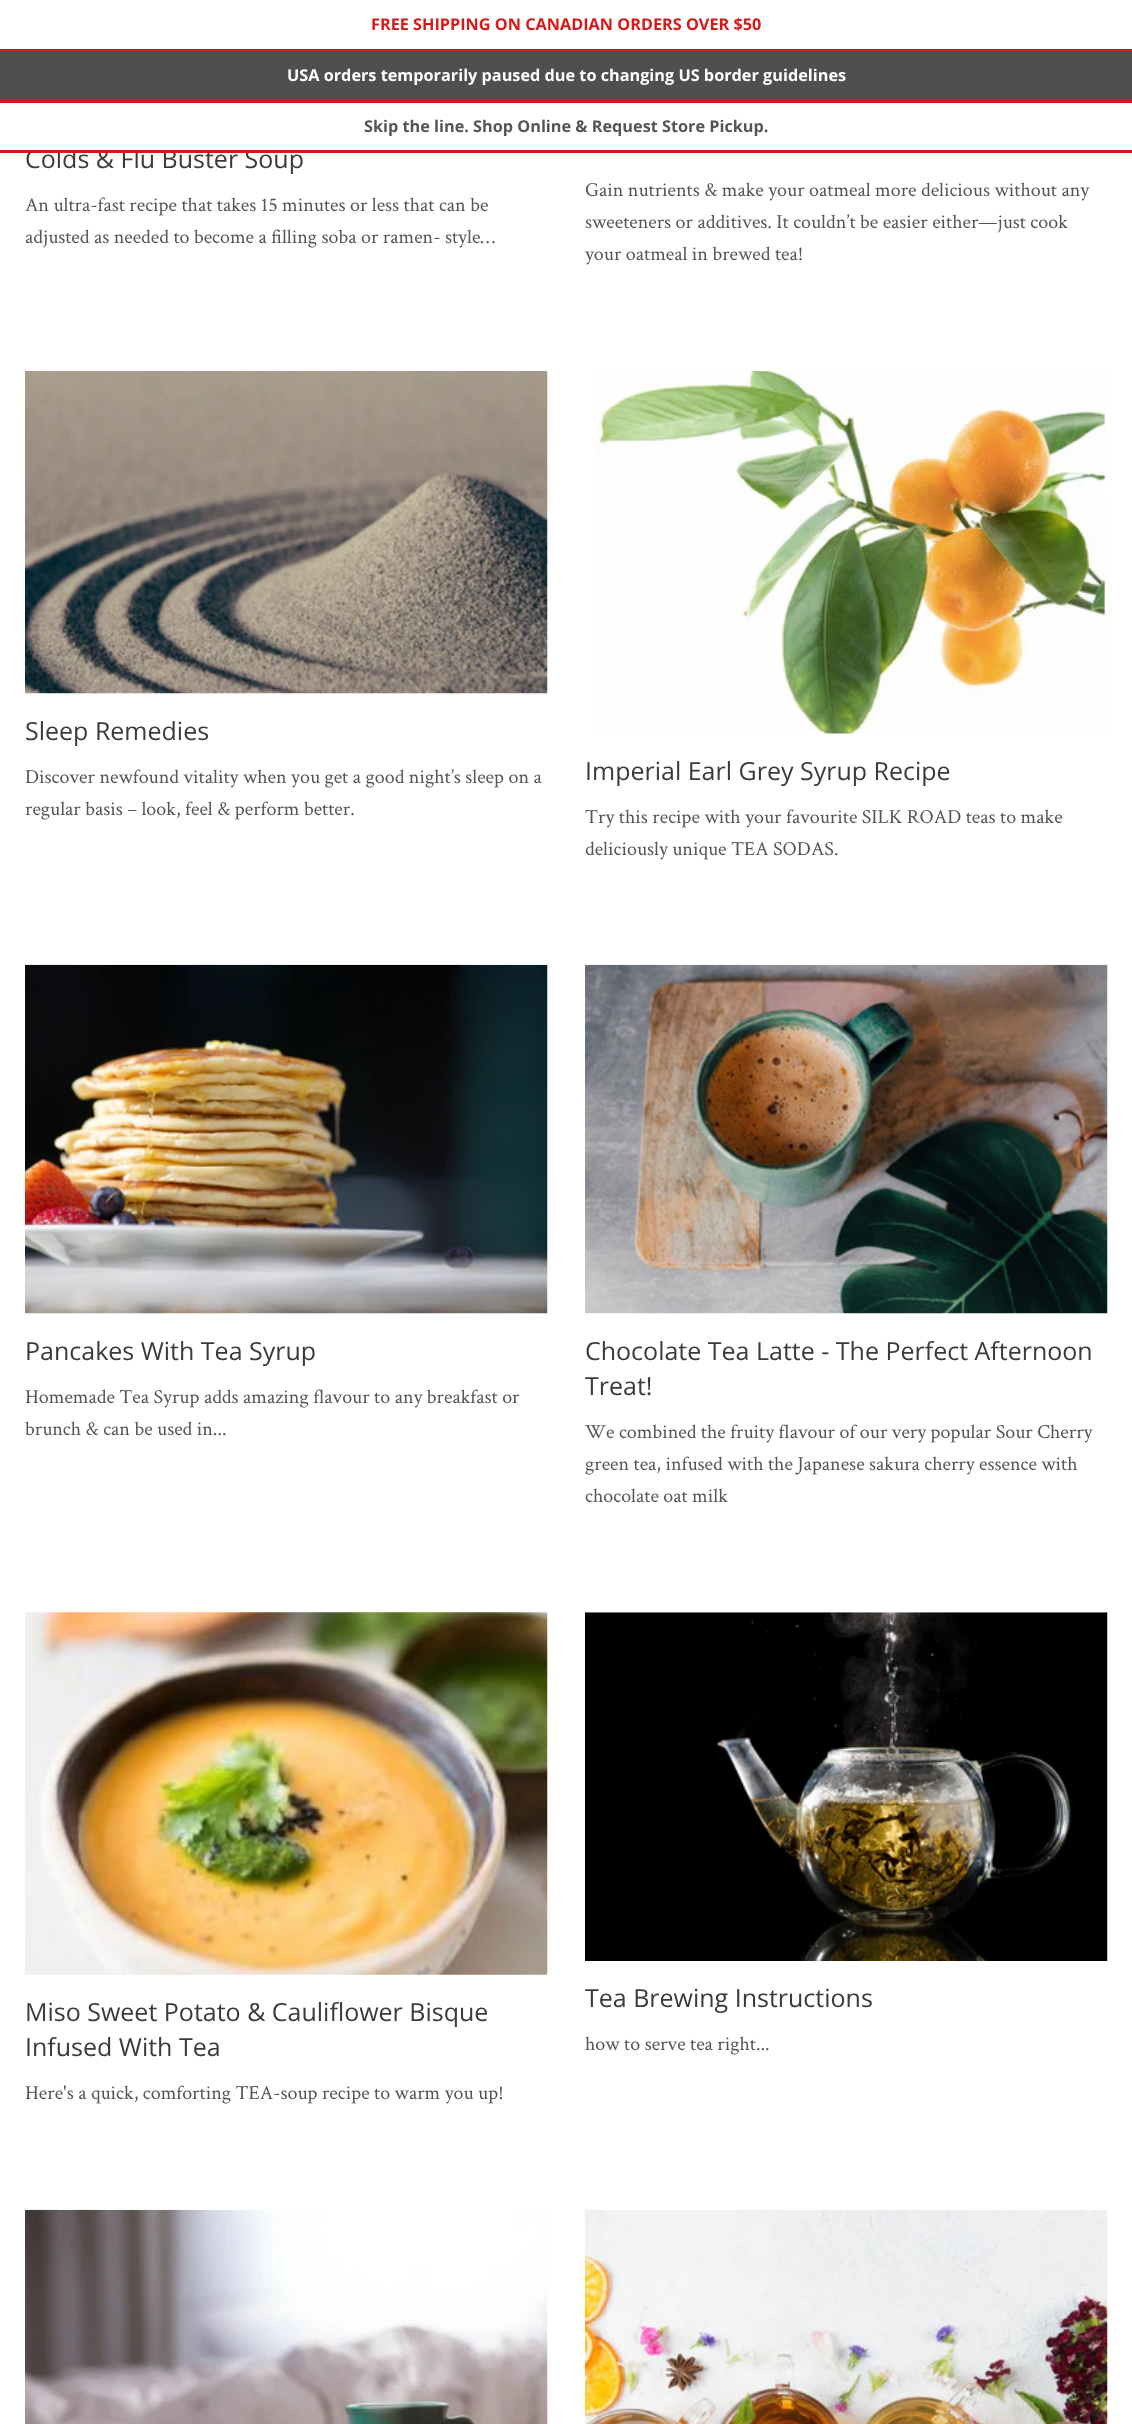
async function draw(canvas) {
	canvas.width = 1132;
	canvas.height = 2424;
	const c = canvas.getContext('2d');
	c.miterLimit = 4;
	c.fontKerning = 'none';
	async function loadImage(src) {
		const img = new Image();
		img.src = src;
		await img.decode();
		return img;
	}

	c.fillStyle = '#fff';
	c.fillRect(0, 0, 1132, 2424);
	c.fillStyle = '#d81919';
	c.fillRect(0, 49, 1132, 2);
	c.font = 'bold 16.25px Open Sans';
	c.fillText('FREE SHIPPING ON CANADIAN ORDERS OVER $50', 371, 30);
	c.fillRect(0, 100, 1132, 3);
	c.fillStyle = '#4f4f4f';
	c.fillRect(0, 51, 1132, 49);
	c.fillStyle = '#fff';
	c.fillText('USA orders temporarily paused due to changing US border guidelines', 287, 81);
	c.font = '25px Open Sans';
	c.fillStyle = '#3b3b3b';
	c.fillText('Colds & Flu Buster Soup', 25, 168);
	c.fillStyle = '#d81919';
	c.fillRect(0, 150, 1132, 3);
	c.fillStyle = '#fff';
	c.fillRect(34, 149, 219, 1);
	c.font = 'bold 16.25px Open Sans';
	c.fillStyle = '#555';
	c.fillText('Skip the line. Shop Online & Request Store Pickup.', 364, 132);
	c.font = '20px Crimson Text';
	for (const [text, x, y] of [
		['An ultra-fast recipe that takes 15 minutes or less that can be', 25, 211],
		['adjusted as needed to become a filling soba or ramen- style…', 25, 243],
		['Gain nutrients & make your oatmeal more delicious without any', 585, 196],
		['sweeteners or additives. It couldn’t be easier either—just cook', 585, 228],
		['your oatmeal in brewed tea!', 585, 260],
	]) {
		c.fillText(text, x, y);
	}
	c.drawImage(await loadImage('img1.png'), 25, 371, 523, 323);
	c.font = '25px Open Sans';
	c.fillStyle = '#3b3b3b';
	c.fillText('Sleep Remedies', 25, 740);
	c.font = '20px Crimson Text';
	c.fillStyle = '#555';
	c.fillText('Discover newfound vitality when you get a good night’s sleep on a', 25, 783);
	c.fillText('regular basis – look, feel & perform better.', 25, 815);
	c.drawImage(await loadImage('img2.png'), 596, 371, 511, 363);
	c.font = '25px Open Sans';
	c.fillStyle = '#3b3b3b';
	c.fillText('Imperial Earl Grey Syrup Recipe', 585, 780);
	c.font = '20px Crimson Text';
	c.fillStyle = '#555';
	c.fillText('Try this recipe with your favourite SILK ROAD teas to make', 585, 823);
	c.fillText('deliciously unique TEA SODAS.', 585, 855);
	c.drawImage(await loadImage('img3.png'), 25, 964, 523, 350);
	c.font = '25px Open Sans';
	c.fillStyle = '#3b3b3b';
	c.fillText('Pancakes With Tea Syrup', 25, 1360);
	c.font = '20px Crimson Text';
	c.fillStyle = '#555';
	c.fillText('Homemade Tea Syrup adds amazing flavour to any breakfast or', 25, 1403);
	c.fillText('brunch & can be used in...', 25, 1435);
	c.drawImage(await loadImage('img4.png'), 585, 964, 523, 350);
	c.font = '25px Open Sans';
	c.fillStyle = '#3b3b3b';
	c.fillText('Chocolate Tea Latte - The Perfect Afternoon', 585, 1360);
	c.fillText('Treat!', 585, 1395);
	c.font = '20px Crimson Text';
	c.fillStyle = '#555';
	for (const [text, x, y] of [
		['We combined the fruity flavour of our very popular Sour Cherry', 585, 1438],
		['green tea, infused with the Japanese sakura cherry essence with', 585, 1470],
		['chocolate oat milk', 585, 1502],
	]) {
		c.fillText(text, x, y);
	}
	c.drawImage(await loadImage('img5.png'), 25, 1612, 523, 363);
	c.font = '25px Open Sans';
	c.fillStyle = '#3b3b3b';
	c.fillText('Miso Sweet Potato & Cauliflower Bisque', 25, 2021);
	c.fillText('Infused With Tea', 25, 2056);
	c.font = '20px Crimson Text';
	c.fillStyle = '#555';
	c.fillText('Here\'s a quick, comforting TEA-soup recipe to warm you up! ', 25, 2099);
	c.drawImage(await loadImage('img6.png'), 585, 1612, 523, 349);
	c.font = '25px Open Sans';
	c.fillStyle = '#3b3b3b';
	c.fillText('Tea Brewing Instructions', 585, 2007);
	c.font = '20px Crimson Text';
	c.fillStyle = '#555';
	c.fillText('how to serve tea right...', 585, 2050);
	c.drawImage(await loadImage('img7.png'), 25, 2209, 523, 215);
	c.drawImage(await loadImage('img8.png'), 585, 2210, 523, 214);
}

draw(document.querySelector('canvas'));
